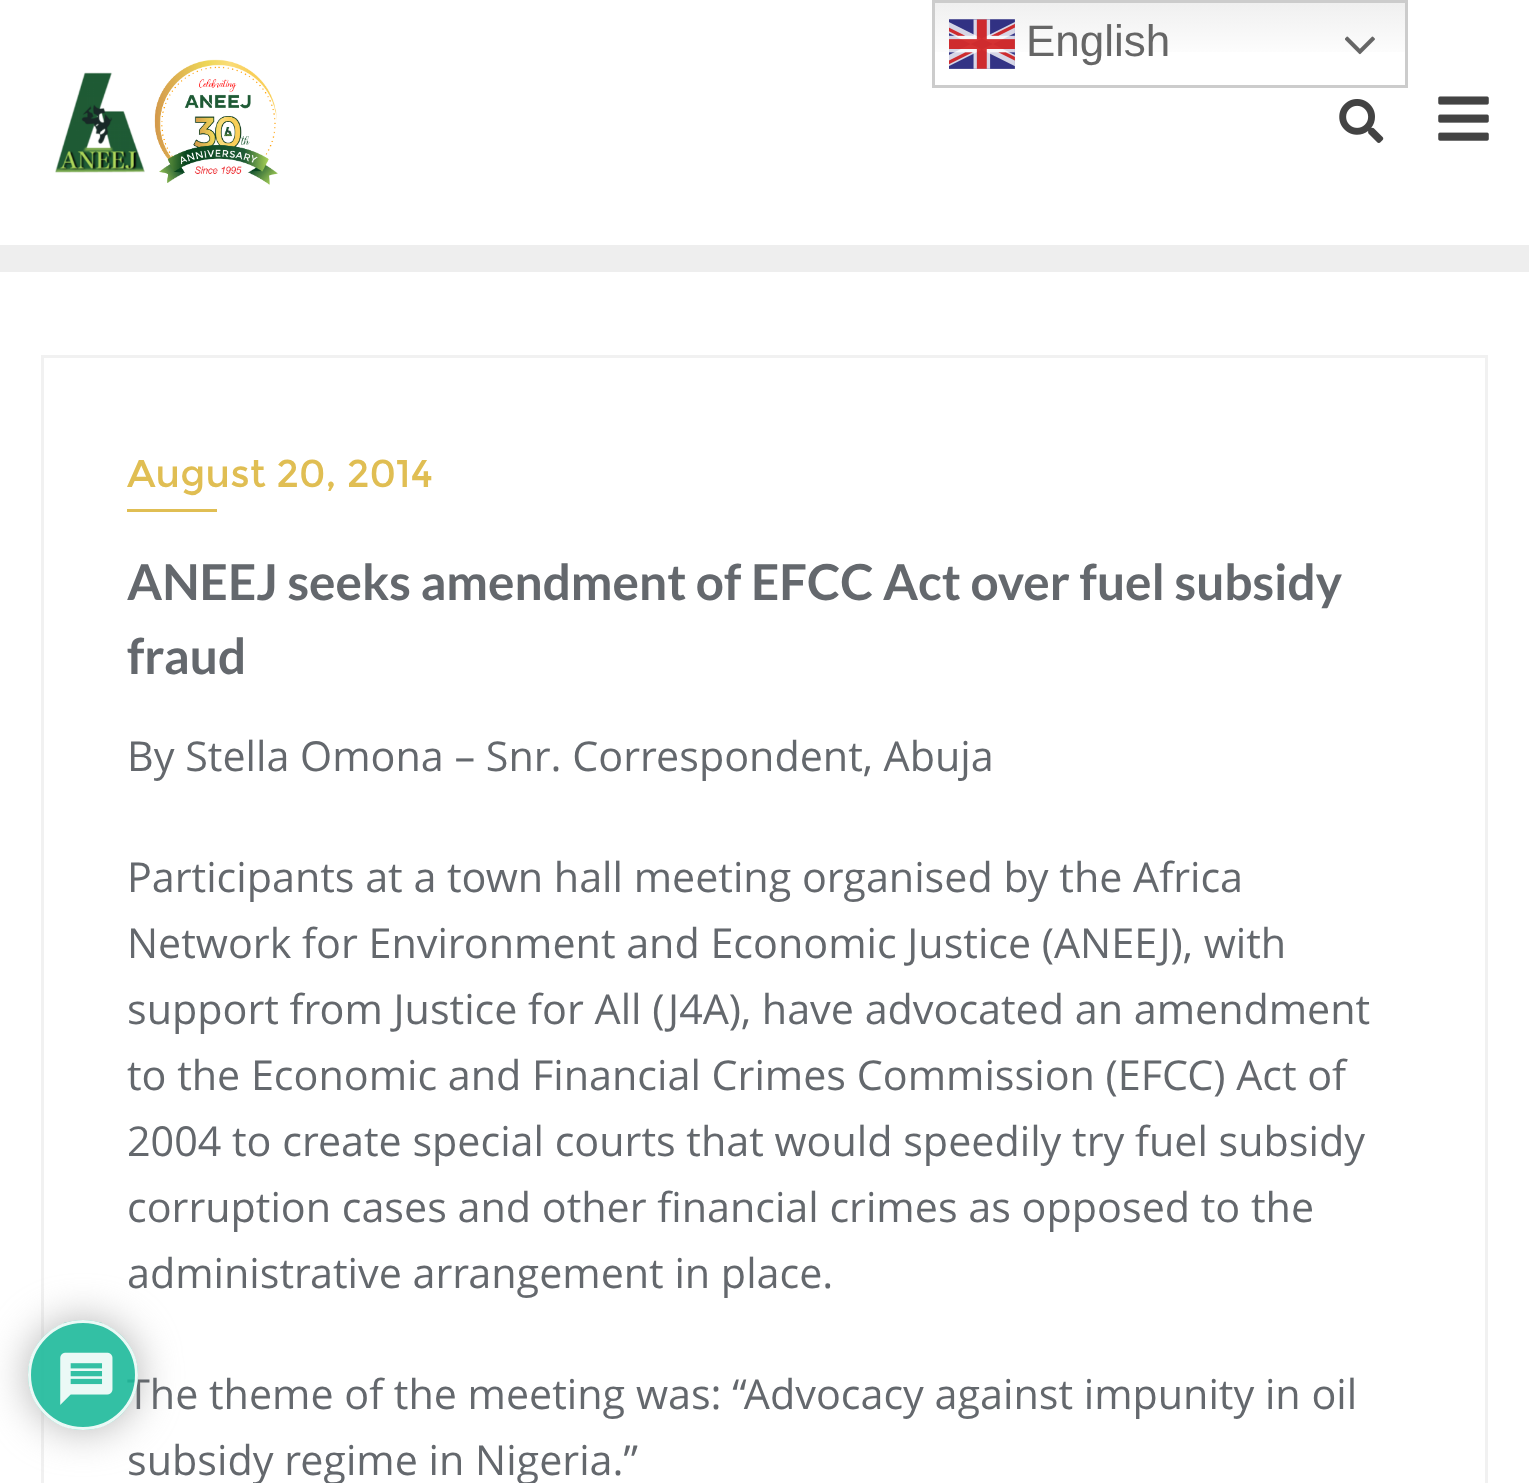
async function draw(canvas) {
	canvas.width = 1529;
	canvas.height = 1483;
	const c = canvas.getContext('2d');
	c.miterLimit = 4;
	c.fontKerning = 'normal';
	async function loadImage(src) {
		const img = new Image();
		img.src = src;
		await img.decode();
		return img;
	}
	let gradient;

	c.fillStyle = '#fff';
	c.fillRect(0, 0, 1529, 1483);
	gradient = c.createLinearGradient(1170, 0, 1170, 88);
	gradient.addColorStop(0, '#efefef');
	gradient.addColorStop(0.7, '#fff');
	c.fillStyle = gradient;
	c.fillRect(935, 3, 470, 49);
	c.strokeStyle = '#ccc';
	c.lineWidth = 3;
	c.strokeRect(933.5, 1.5, 473, 85);
	c.drawImage(await loadImage('img1.png'), 949, 19, 66, 50);
	c.font = '44px Liberation Sans';
	c.fillStyle = '#666';
	c.fillText('English', 1026, 56);
	c.drawImage(await loadImage('img2.png'), 1345, 36, 30, 19);
	c.fillStyle = '#eee';
	c.fillRect(0, 245, 1529, 27);
	c.drawImage(await loadImage('img3.png'), 55, 59, 223, 126);
	c.drawImage(await loadImage('img4.png'), 1339, 99, 45, 44);
	c.drawImage(await loadImage('img5.png'), 1438, 96, 51, 45);
	c.strokeStyle = '#f1f1f1';
	c.strokeRect(42.5, 356.5, 1444, 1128);
	c.save();
	c.beginPath();
	c.moveTo(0, 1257);
	c.lineTo(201, 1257);
	c.lineTo(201, 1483);
	c.lineTo(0, 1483);
	c.closePath();
	c.moveTo(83, 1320);
	c.bezierCurveTo(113.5, 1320, 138, 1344.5, 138, 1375);
	c.bezierCurveTo(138, 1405.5, 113.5, 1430, 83, 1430);
	c.bezierCurveTo(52.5, 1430, 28, 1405.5, 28, 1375);
	c.bezierCurveTo(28, 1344.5, 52.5, 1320, 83, 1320);
	c.closePath();
	c.clip('evenodd');
	c.fillStyle = '#aaaaaae6';
	c.filter = 'blur(20.5px)';
	c.beginPath();
	c.roundRect(28, 1320, 110, 110, 55);
	c.fill();
	c.filter = 'none';
	c.restore();
	c.font = '41.25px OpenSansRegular';
	c.fillStyle = '#64686d';
	c.fillText('The theme of the meeting was: “Advocacy against impunity in oil', 127, 1409);
	c.fillStyle = '#1db99ae6';
	c.beginPath();
	c.arc(83, 1375, 55, 0, 2 * Math.PI);
	c.fill();
	c.beginPath();
	c.arc(83, 1375, 53.5, 0, 2 * Math.PI);
	c.strokeStyle = '#ffffffe6';
	c.stroke();
	c.drawImage(await loadImage('img6.png'), 60, 1352, 53, 53);
	c.font = '38.5px Montserrat';
	c.fillStyle = '#e0be53';
	c.fillText('August 20, 2014', 127, 487);
	c.fillRect(127, 509, 90, 3);
	c.font = 'bold 49.5px Lato';
	c.fillStyle = '#64686d';
	c.fillText('ANEEJ seeks amendment of EFCC Act over fuel subsidy', 127, 600);
	c.fillText('fraud', 127, 674);
	c.font = '41.25px OpenSansRegular';
	for (const [text, x, y] of [
		['By Stella Omona – Snr. Correspondent, Abuja', 127, 771],
		['Participants at a town hall meeting organised by the Africa', 127, 892],
		['Network for Environment and Economic Justice (ANEEJ), with', 127, 958],
		['support from Justice for All (J4A), have advocated an amendment', 127, 1024],
		['to the Economic and Financial Crimes Commission (EFCC) Act of', 127, 1090],
		['2004 to create special courts that would speedily try fuel subsidy', 127, 1156],
		['corruption cases and other financial crimes as opposed to the', 127, 1222],
		['administrative arrangement in place.', 127, 1288],
		['subsidy regime in Nigeria.”', 127, 1475],
	]) {
		c.fillText(text, x, y);
	}
}

draw(document.querySelector('canvas'));
